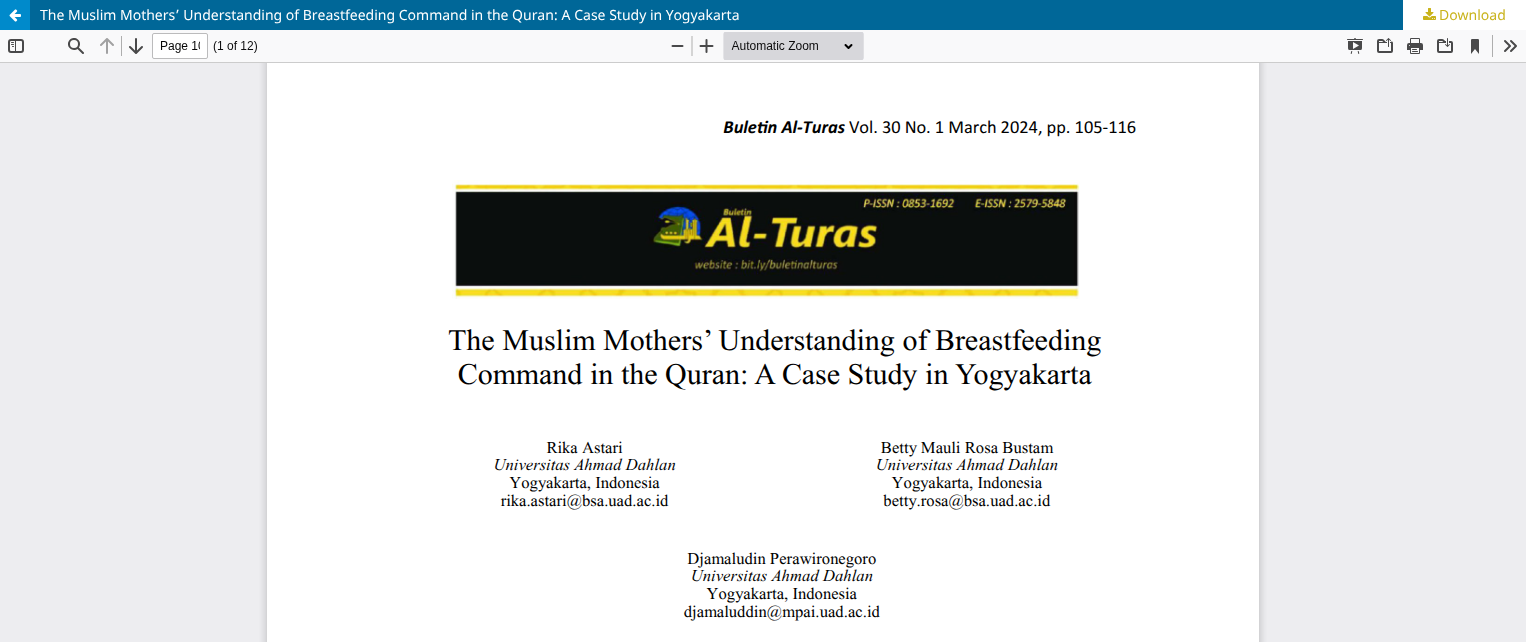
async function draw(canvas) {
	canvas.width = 1526;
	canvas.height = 642;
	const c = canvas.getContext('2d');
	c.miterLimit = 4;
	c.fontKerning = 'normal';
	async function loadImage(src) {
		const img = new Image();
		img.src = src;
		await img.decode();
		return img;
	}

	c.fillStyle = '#fff';
	c.fillRect(0, 0, 1526, 642);
	c.fillStyle = '#006798';
	c.fillRect(30, 0, 1373, 30);
	c.fillStyle = '#008acb';
	c.fillRect(0, 0, 30, 30);
	c.drawImage(await loadImage('img1.png'), 9, 9, 12, 13);
	c.font = '14px Noto Sans';
	c.fillStyle = '#fff';
	c.fillText('The Muslim Mothers’ Understanding of Breastfeeding Command in the Quran: A Case Study in Yogyakarta', 40, 20);
	c.drawImage(await loadImage('img2.png'), 1423, 8, 13, 12);
	c.fillStyle = '#c9b31b';
	c.fillText('Download', 1439, 20);
	c.drawImage(await loadImage('img3.png'), 0, 30, 1526, 612);
}

draw(document.querySelector('canvas'));
